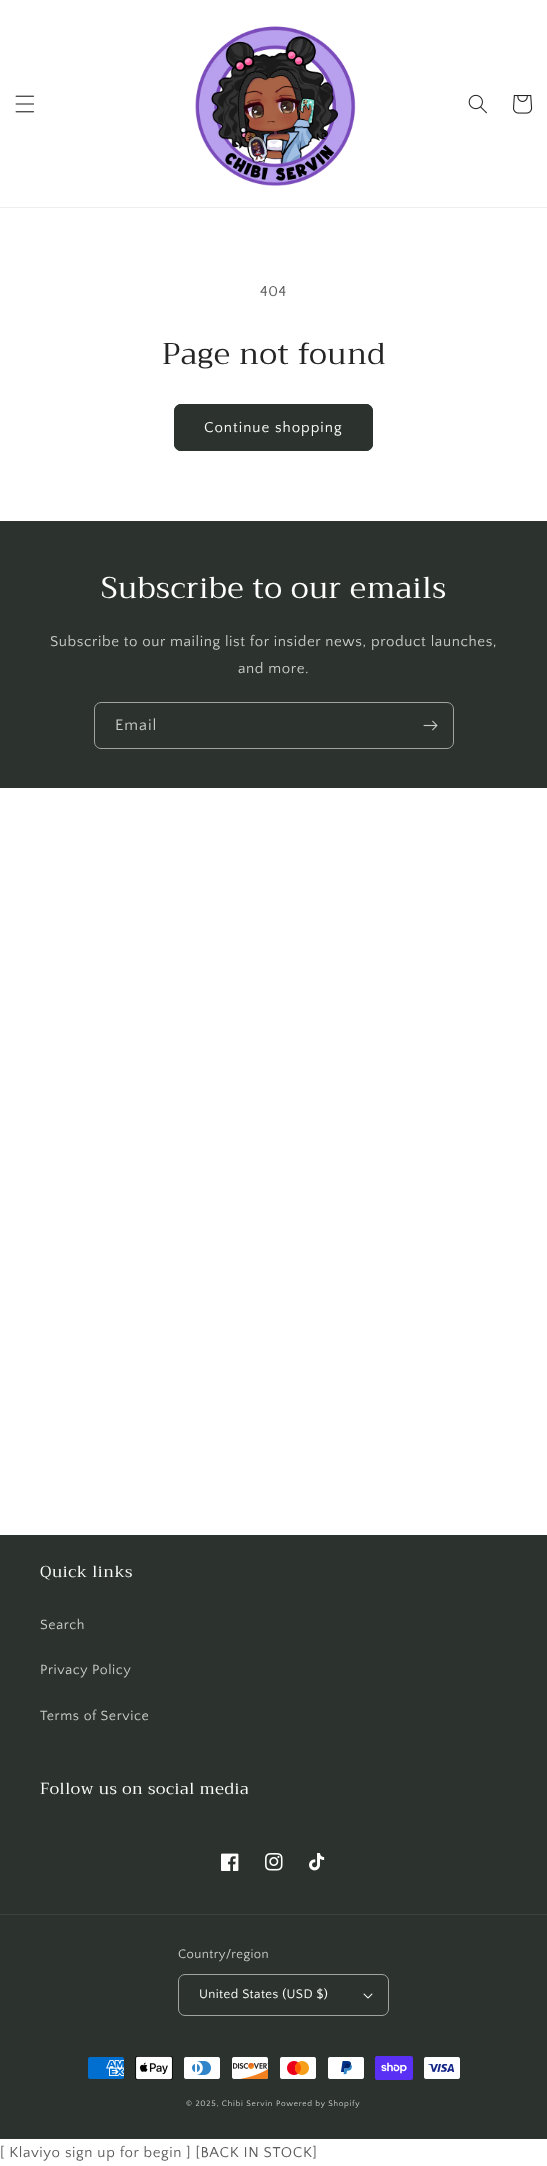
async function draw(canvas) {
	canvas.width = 547;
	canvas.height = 2166;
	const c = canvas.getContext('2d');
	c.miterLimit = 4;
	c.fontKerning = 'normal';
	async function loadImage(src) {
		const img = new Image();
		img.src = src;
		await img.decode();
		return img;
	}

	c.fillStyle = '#fff';
	c.fillRect(0, 0, 547, 2166);
	c.fillStyle = '#eee';
	c.fillRect(0, 207, 547, 1);
	c.drawImage(await loadImage('img1.png'), 15, 95, 20, 18);
	c.drawImage(await loadImage('img2.png'), 195, 26, 161, 160);
	c.drawImage(await loadImage('img3.png'), 468, 94, 19, 20);
	c.drawImage(await loadImage('img4.png'), 513, 95, 20, 19);
	c.letterSpacing = '0.6px';
	c.font = '15px Quattrocento Sans';
	c.fillStyle = '#5c5c5c';
	c.fillText('404', 260, 296);
	c.font = '30px Trirong';
	c.fillStyle = '#252525';
	c.fillText('Page not found', 162, 364);
	c.fillStyle = '#2c332f';
	c.beginPath();
	c.roundRect(174, 404, 199, 47, 7);
	c.fill();
	c.beginPath();
	c.roundRect(174.5, 404.5, 198, 46, 6.5);
	c.strokeStyle = '#2c332f';
	c.stroke();
	c.letterSpacing = '1px';
	c.font = '15px Quattrocento Sans';
	c.fillStyle = '#fff';
	c.fillText('Continue shopping', 204, 432);
	c.fillStyle = '#2c332f';
	c.fillRect(0, 521, 547, 267);
	c.letterSpacing = '0.6px';
	c.font = '30px Trirong';
	c.fillStyle = '#fff';
	c.fillText('Subscribe to our emails', 101, 598);
	c.font = '15px Quattrocento Sans';
	c.fillStyle = '#cacccb';
	c.fillText('Subscribe to our mailing list for insider news, product launches,', 50, 646);
	c.fillText('and more.', 238, 673);
	c.beginPath();
	c.roundRect(94.5, 702.5, 359, 46, 6.5);
	c.strokeStyle = '#a0a3a1';
	c.stroke();
	c.letterSpacing = '1px';
	c.font = '16px Quattrocento Sans';
	c.fillText('Email', 115, 730);
	c.drawImage(await loadImage('img5.png'), 423, 720, 15, 11);
	c.fillStyle = '#2c332f';
	c.fillRect(0, 1535, 547, 604);
	c.letterSpacing = '0.6px';
	c.font = '16px Trirong';
	c.fillStyle = '#fff';
	c.fillText('Quick links', 40, 1577);
	c.font = '14px Quattrocento Sans';
	c.fillStyle = '#cacccb';
	for (const [text, x, y] of [
		['Search', 40, 1629],
		['Privacy Policy', 40, 1674],
		['Terms of Service', 40, 1720],
	]) {
		c.fillText(text, x, y);
	}
	c.font = '16px Trirong';
	c.fillStyle = '#fff';
	c.fillText('Follow us on social media', 40, 1794);
	c.drawImage(await loadImage('img6.png'), 221, 1853, 18, 18);
	c.drawImage(await loadImage('img7.png'), 265, 1853, 18, 18);
	c.drawImage(await loadImage('img8.png'), 309, 1853, 16, 18);
	c.fillStyle = '#3d4340';
	c.fillRect(0, 1914, 547, 1);
	c.letterSpacing = '0.4px';
	c.font = '13px Quattrocento Sans';
	c.fillStyle = '#cacccb';
	c.fillText('Country/region', 178, 1958);
	c.drawImage(await loadImage('img9.png'), 363, 1993, 10, 6);
	c.beginPath();
	c.roundRect(178.5, 1974.5, 210, 41, 6.5);
	c.stroke();
	c.fillStyle = '#fff';
	c.fillText('United States (USD $)', 199, 1998);
	c.drawImage(await loadImage('img10.png'), 88, 2057, 36, 22);
	c.drawImage(await loadImage('img11.png'), 135, 2056, 38, 24);
	c.drawImage(await loadImage('img12.png'), 184, 2057, 36, 22);
	c.drawImage(await loadImage('img13.png'), 232, 2057, 36, 22);
	c.drawImage(await loadImage('img14.png'), 280, 2057, 36, 22);
	c.drawImage(await loadImage('img15.png'), 328, 2057, 36, 22);
	c.drawImage(await loadImage('img16.png'), 375, 2056, 38, 24);
	c.drawImage(await loadImage('img17.png'), 424, 2057, 36, 22);
	c.letterSpacing = '0.7px';
	c.font = '8.25px Quattrocento Sans';
	c.fillStyle = '#cacccb';
	c.fillText('© 2025, Chibi Servin', 186, 2106);
	c.fillText('Powered by Shopify', 276, 2106);
	c.letterSpacing = '0.6px';
	c.font = '15px Quattrocento Sans';
	c.fillStyle = '#5c5c5c';
	c.fillText('[ Klaviyo sign up for begin ] [BACK IN STOCK]', 0, 2157);
}

draw(document.querySelector('canvas'));
